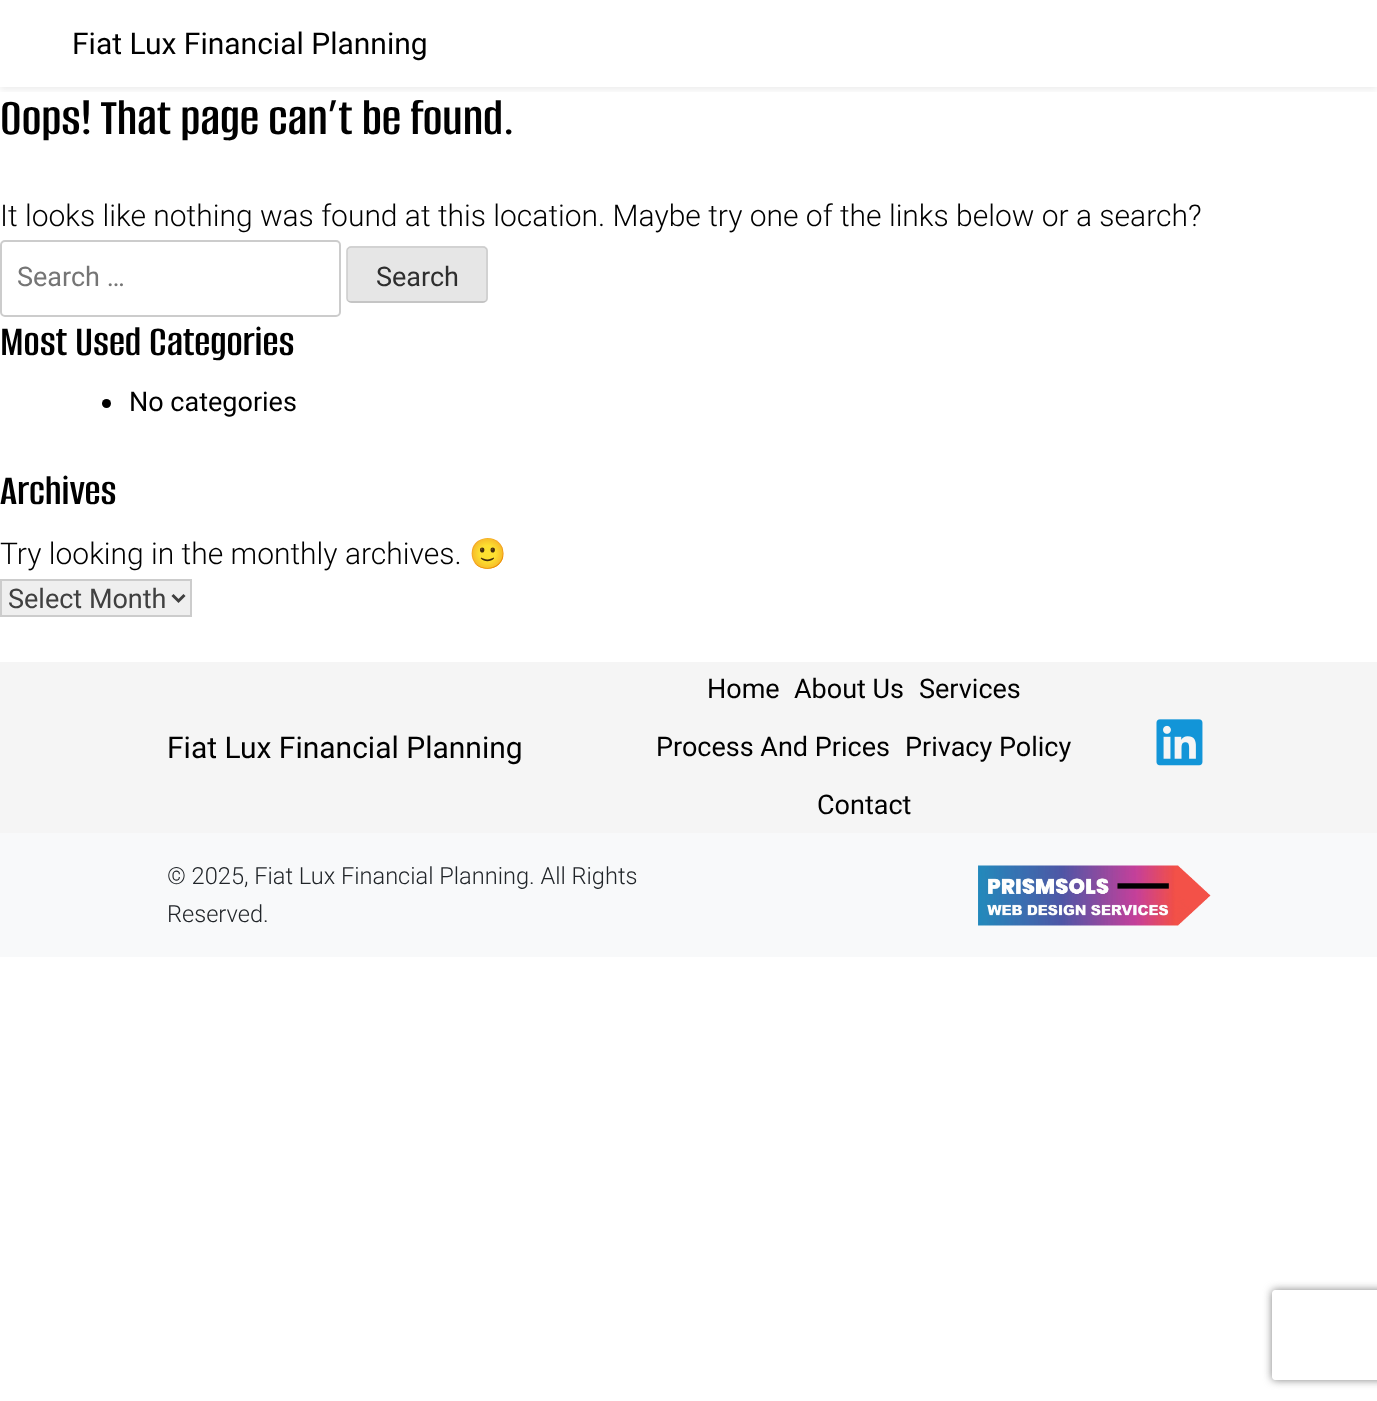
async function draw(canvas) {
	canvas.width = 1377;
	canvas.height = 1401;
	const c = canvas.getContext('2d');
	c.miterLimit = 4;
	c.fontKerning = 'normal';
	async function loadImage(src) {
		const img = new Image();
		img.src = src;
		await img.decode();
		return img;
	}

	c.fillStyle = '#fff';
	c.fillRect(0, 0, 1377, 1401);
	c.save();
	c.beginPath();
	c.rect(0, 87, 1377, 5);
	c.clip();
	c.fillStyle = '#00000012';
	c.filter = 'blur(3px)';
	c.beginPath();
	c.rect(0, 3, 1377, 87);
	c.fill();
	c.filter = 'none';
	c.restore();
	c.font = '30px Roboto';
	c.fillStyle = '#000';
	c.fillText('Fiat Lux Financial Planning', 72, 54);
	c.font = '600 53.75px Alumni Sans';
	c.fillText('Oops! That page can’t be found.', 0, 134);
	c.font = '300 30px Roboto';
	c.fillText('It looks like nothing was found at this location. Maybe try one of the links below or a search?', 0, 226);
	c.beginPath();
	c.roundRect(1, 241, 339, 75, 4);
	c.strokeStyle = '#ccc';
	c.lineWidth = 2;
	c.stroke();
	c.font = '27px Roboto';
	c.fillStyle = '#757575';
	c.fillText('Search …', 17, 286);
	c.fillStyle = '#e6e6e6';
	c.beginPath();
	c.roundRect(347, 246, 141, 57, 5);
	c.fill();
	c.beginPath();
	c.moveTo(485.5, 301);
	c.bezierCurveTo(485, 302, 484, 302, 483, 302);
	c.lineTo(351, 302);
	c.bezierCurveTo(350, 302, 349, 302, 348.5, 301);
	c.strokeStyle = '#bbb';
	c.lineWidth = 1.5;
	c.stroke();
	c.beginPath();
	c.moveTo(348.5, 301);
	c.bezierCurveTo(347.5, 300.5, 347, 299.5, 347, 298.5);
	c.lineTo(347, 250.5);
	c.bezierCurveTo(347, 249.5, 347.5, 248.5, 348.5, 248);
	c.bezierCurveTo(349, 247, 350, 247, 351, 247);
	c.lineTo(483, 247);
	c.bezierCurveTo(484, 247, 485, 247, 485.5, 248);
	c.bezierCurveTo(486.5, 248.5, 487, 249.5, 487, 250.5);
	c.lineTo(487, 298.5);
	c.bezierCurveTo(487, 299.5, 486.5, 300.5, 485.5, 301);
	c.strokeStyle = '#ccc';
	c.stroke();
	c.fillStyle = '#2e2e2e';
	c.fillText('Search', 376, 286);
	c.font = '600 44.25px Alumni Sans';
	c.fillStyle = '#000';
	c.fillText('Most Used Categories', 0, 355);
	c.beginPath();
	c.arc(106.5, 403.5, 4.5, 0, 2 * Math.PI);
	c.fill();
	c.font = '27px Roboto';
	c.fillText('No categories', 129, 411);
	c.font = '600 44.25px Alumni Sans';
	c.fillText('Archives', 0, 504);
	c.font = '300 30px Roboto';
	c.fillText('Try looking in the monthly archives.', 0, 564);
	c.font = '30px Noto Color Emoji';
	c.fillText('🙂', 469, 564);
	c.fillStyle = '#efefef';
	c.beginPath();
	c.rect(1, 580, 190, 36);
	c.fill();
	c.lineWidth = 2;
	c.stroke();
	c.beginPath();
	c.moveTo(172.5, 595);
	c.lineTo(178.5, 601);
	c.lineTo(184.5, 595);
	c.strokeStyle = '#404040';
	c.lineWidth = 3;
	c.stroke();
	c.font = '27px Roboto';
	c.fillStyle = '#404040';
	c.fillText('Select Month', 8, 608);
	c.fillStyle = '#f8f9fa';
	c.fillRect(0, 833, 1377, 124);
	c.fillStyle = '#f5f5f5';
	c.fillRect(0, 662, 1377, 171);
	c.font = '30px Roboto';
	c.fillStyle = '#000';
	c.fillText('Fiat Lux Financial Planning', 167, 758);
	c.font = '27px Roboto';
	for (const [text, x, y] of [
		['Home', 707, 698],
		['About Us', 794, 698],
		['Services', 919, 698],
		['Process And Prices', 656, 756],
		['Privacy Policy', 905, 756],
		['Contact', 817, 814],
	]) {
		c.fillText(text, x, y);
	}
	c.drawImage(await loadImage('img1.png'), 1156, 719, 47, 47);
	c.font = '300 23.6px Roboto';
	c.fillStyle = '#212529';
	c.fillText('© 2025, Fiat Lux Financial Planning. All Rights', 167, 884);
	c.fillText('Reserved.', 167, 922);
	c.drawImage(await loadImage('img2.png'), 978, 865, 233, 61);
	c.save();
	c.beginPath();
	c.moveTo(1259, 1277);
	c.lineTo(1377, 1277);
	c.lineTo(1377, 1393);
	c.lineTo(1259, 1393);
	c.closePath();
	c.moveTo(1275, 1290);
	c.lineTo(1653, 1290);
	c.bezierCurveTo(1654.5, 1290, 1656, 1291.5, 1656, 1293);
	c.lineTo(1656, 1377);
	c.bezierCurveTo(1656, 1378.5, 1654.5, 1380, 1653, 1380);
	c.lineTo(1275, 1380);
	c.bezierCurveTo(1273.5, 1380, 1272, 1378.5, 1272, 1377);
	c.lineTo(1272, 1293);
	c.bezierCurveTo(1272, 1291.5, 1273.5, 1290, 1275, 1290);
	c.closePath();
	c.clip('evenodd');
	c.fillStyle = '#808080';
	c.filter = 'blur(4px)';
	c.beginPath();
	c.roundRect(1272, 1290, 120, 90, 3);
	c.fill();
	c.filter = 'none';
	c.restore();
}

draw(document.querySelector('canvas'));
